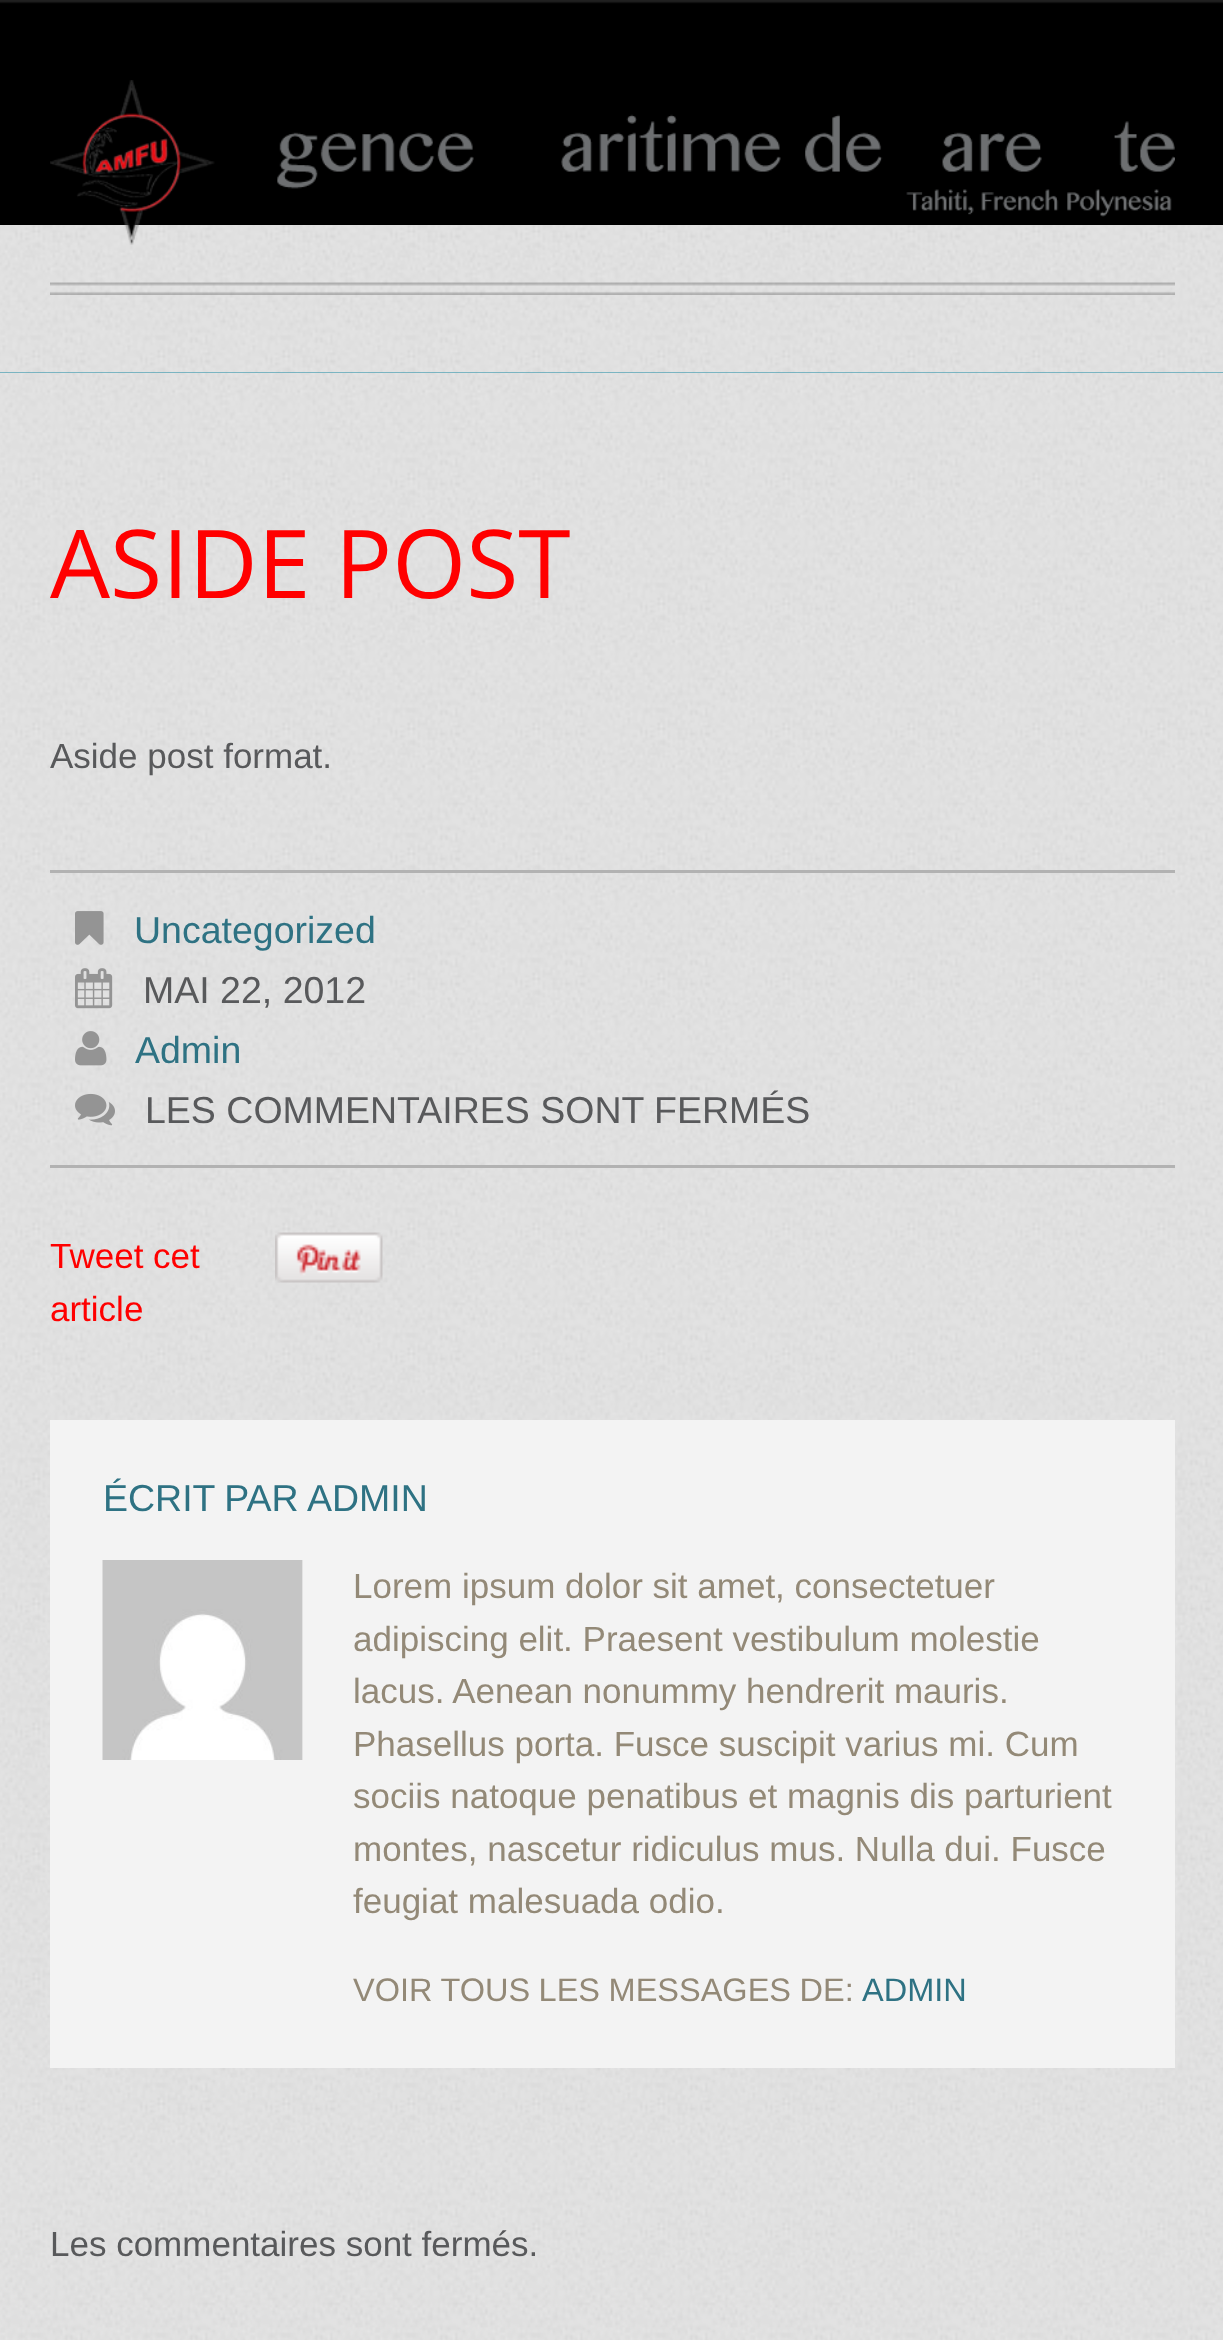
async function draw(canvas) {
	canvas.width = 1223;
	canvas.height = 2340;
	const c = canvas.getContext('2d');
	c.miterLimit = 4;
	c.fontKerning = 'normal';
	async function loadImage(src) {
		const img = new Image();
		img.src = src;
		await img.decode();
		return img;
	}

	c.fillStyle = '#fff';
	c.fillRect(0, 0, 1223, 2340);
	c.fillStyle = '#1588a3';
	c.fillRect(0, 372, 1223, 1);
	c.drawImage(await loadImage('img1.png'), 0, 225, 1223, 148);
	c.drawImage(await loadImage('img2.png'), 0, 0, 1223, 225);
	c.drawImage(await loadImage('img3.png'), 50, 80, 1125, 165);
	c.drawImage(await loadImage('img4.png'), 50, 282, 1125, 13);
	c.drawImage(await loadImage('img5.png'), 0, 373, 1223, 1967);
	c.font = '95px Open Sans';
	c.fillStyle = '#f00';
	c.fillText('ASIDE POST', 50, 598);
	c.font = '35px Liberation Sans';
	c.fillStyle = '#58595b';
	c.fillText('Aside post format.', 50, 768);
	c.fillStyle = '#b2b2b2';
	c.fillRect(50, 870, 1125, 3);
	c.fillRect(50, 1165, 1125, 3);
	c.drawImage(await loadImage('img6.png'), 75, 911, 29, 34);
	c.font = '37.5px Liberation Sans';
	c.fillStyle = '#2e7283';
	c.fillText('Uncategorized', 134, 943);
	c.drawImage(await loadImage('img7.png'), 75, 968, 38, 41);
	c.fillStyle = '#58595b';
	c.fillText('MAI 22, 2012', 143, 1003);
	c.drawImage(await loadImage('img8.png'), 75, 1031, 32, 35);
	c.fillStyle = '#2e7283';
	c.fillText('Admin', 135, 1063);
	c.drawImage(await loadImage('img9.png'), 75, 1093, 40, 33);
	c.fillStyle = '#58595b';
	c.fillText('LES COMMENTAIRES SONT FERMÉS', 145, 1123);
	c.font = '35px Liberation Sans';
	c.fillStyle = '#f00';
	c.fillText('Tweet cet', 50, 1268);
	c.fillText('article', 50, 1321);
	c.drawImage(await loadImage('img10.png'), 275, 1232, 108, 51);
	c.fillStyle = '#f3f3f3';
	c.fillRect(50, 1420, 1125, 648);
	c.wordSpacing = '-1px';
	c.font = '37.5px Liberation Sans';
	c.fillStyle = '#2e7283';
	c.fillText('ÉCRIT PAR', 103, 1511);
	c.wordSpacing = '0px';
	c.fillText('ADMIN', 307, 1511);
	c.fillStyle = '#fff';
	c.fillRect(302, 1560, 1, 200);
	c.drawImage(await loadImage('img11.png'), 102, 1560, 201, 200);
	c.font = '35px Liberation Sans';
	c.fillStyle = '#938977';
	for (const [text, x, y] of [
		['Lorem ipsum dolor sit amet, consectetuer', 353, 1598],
		['adipiscing elit. Praesent vestibulum molestie', 353, 1651],
		['lacus. Aenean nonummy hendrerit mauris.', 353, 1703],
		['Phasellus porta. Fusce suscipit varius mi. Cum', 353, 1756],
		['sociis natoque penatibus et magnis dis parturient', 353, 1808],
		['montes, nascetur ridiculus mus. Nulla dui. Fusce', 353, 1861],
		['feugiat malesuada odio.', 353, 1913],
	]) {
		c.fillText(text, x, y);
	}
	c.wordSpacing = '-0.5px';
	c.font = '32.5px Liberation Sans';
	c.fillText('VOIR TOUS LES MESSAGES DE:', 353, 2001);
	c.wordSpacing = '0px';
	c.fillStyle = '#2e7283';
	c.fillText('ADMIN', 862, 2001);
	c.font = '35px Liberation Sans';
	c.fillStyle = '#58595b';
	c.fillText('Les commentaires sont fermés.', 50, 2256);
}

draw(document.querySelector('canvas'));
